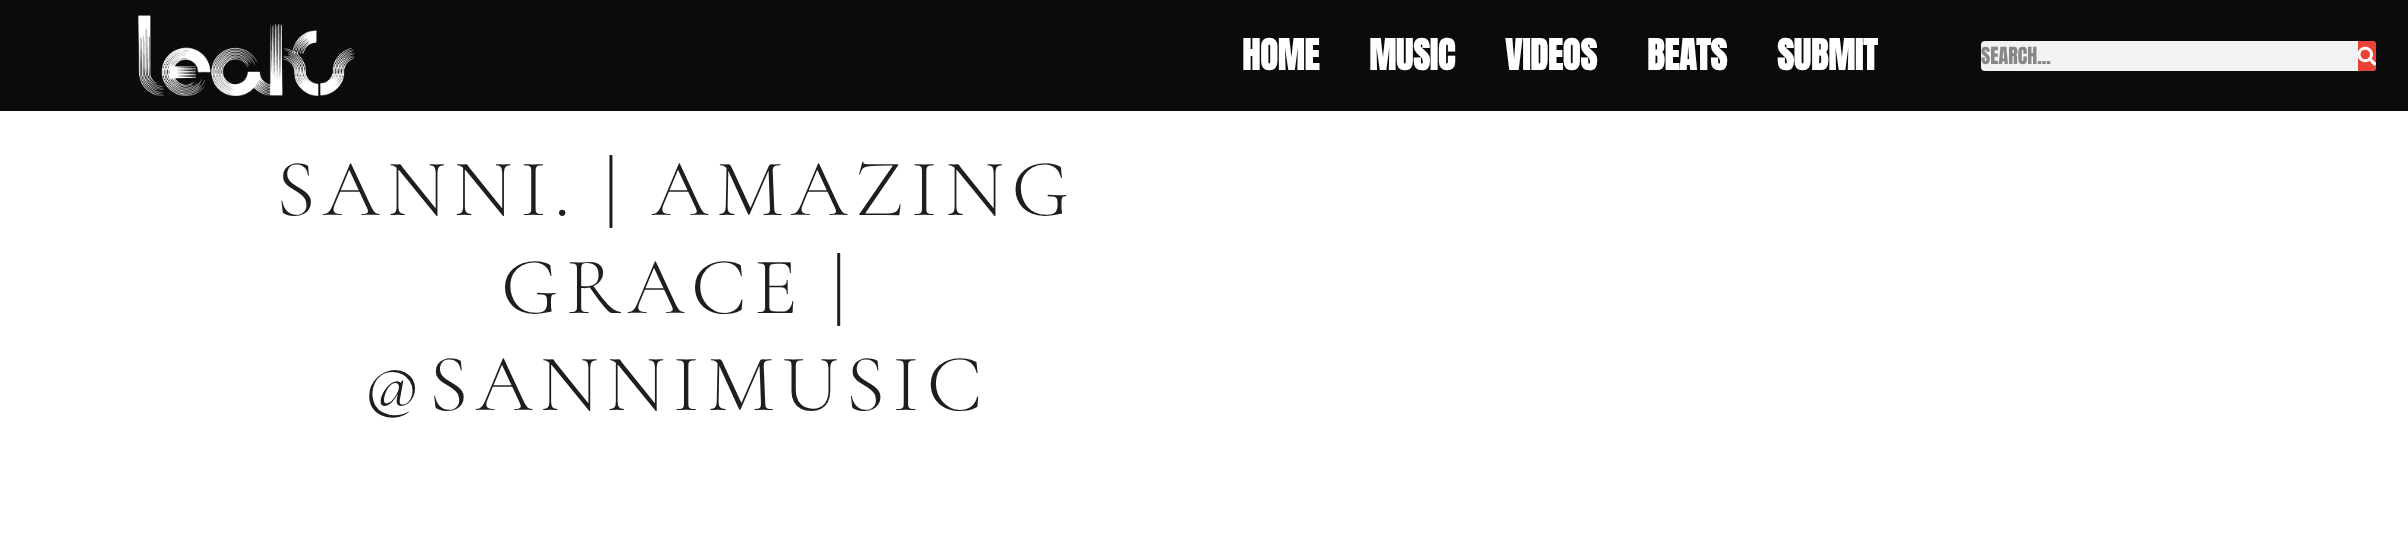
async function draw(canvas) {
	canvas.width = 2408;
	canvas.height = 541;
	const c = canvas.getContext('2d');
	c.miterLimit = 4;
	c.fontKerning = 'normal';
	async function loadImage(src) {
		const img = new Image();
		img.src = src;
		await img.decode();
		return img;
	}

	c.fillStyle = '#fff';
	c.fillRect(0, 0, 2408, 541);
	c.fillStyle = '#0b0b0b';
	c.fillRect(0, 0, 2408, 111);
	c.drawImage(await loadImage('img1.png'), 138, 15, 217, 81);
	c.font = 'bold 36px Anton';
	c.fillStyle = '#fff';
	for (const [text, x, y] of [
		['HOME', 1242, 70],
		['MUSIC', 1369, 70],
		['VIDEOS', 1505, 70],
		['BEATS', 1647, 70],
		['SUBMIT', 1777, 70],
	]) {
		c.fillText(text, x, y);
	}
	c.fillStyle = '#f1f2f3';
	c.beginPath();
	c.roundRect(1981, 41, 395, 30, 4);
	c.fill();
	c.font = '20px Anton';
	c.fillStyle = '#868787';
	c.fillText('SEARCH...', 1981, 64);
	c.fillStyle = '#ea4335';
	c.beginPath();
	c.roundRect(2358, 41, 18, 30, [0, 4, 4, 0]);
	c.fill();
	c.drawImage(await loadImage('img2.png'), 2358, 46, 18, 20);
	c.letterSpacing = '7.5px';
	c.font = '300 81.25px Cormorant Garamond';
	c.fillStyle = '#1e1e1e';
	for (const [text, x, y] of [
		['SANNI. | AMAZING', 276, 215],
		['GRACE |', 501, 313],
		['@SANNIMUSIC', 363, 410],
	]) {
		c.fillText(text, x, y);
	}
}

draw(document.querySelector('canvas'));
